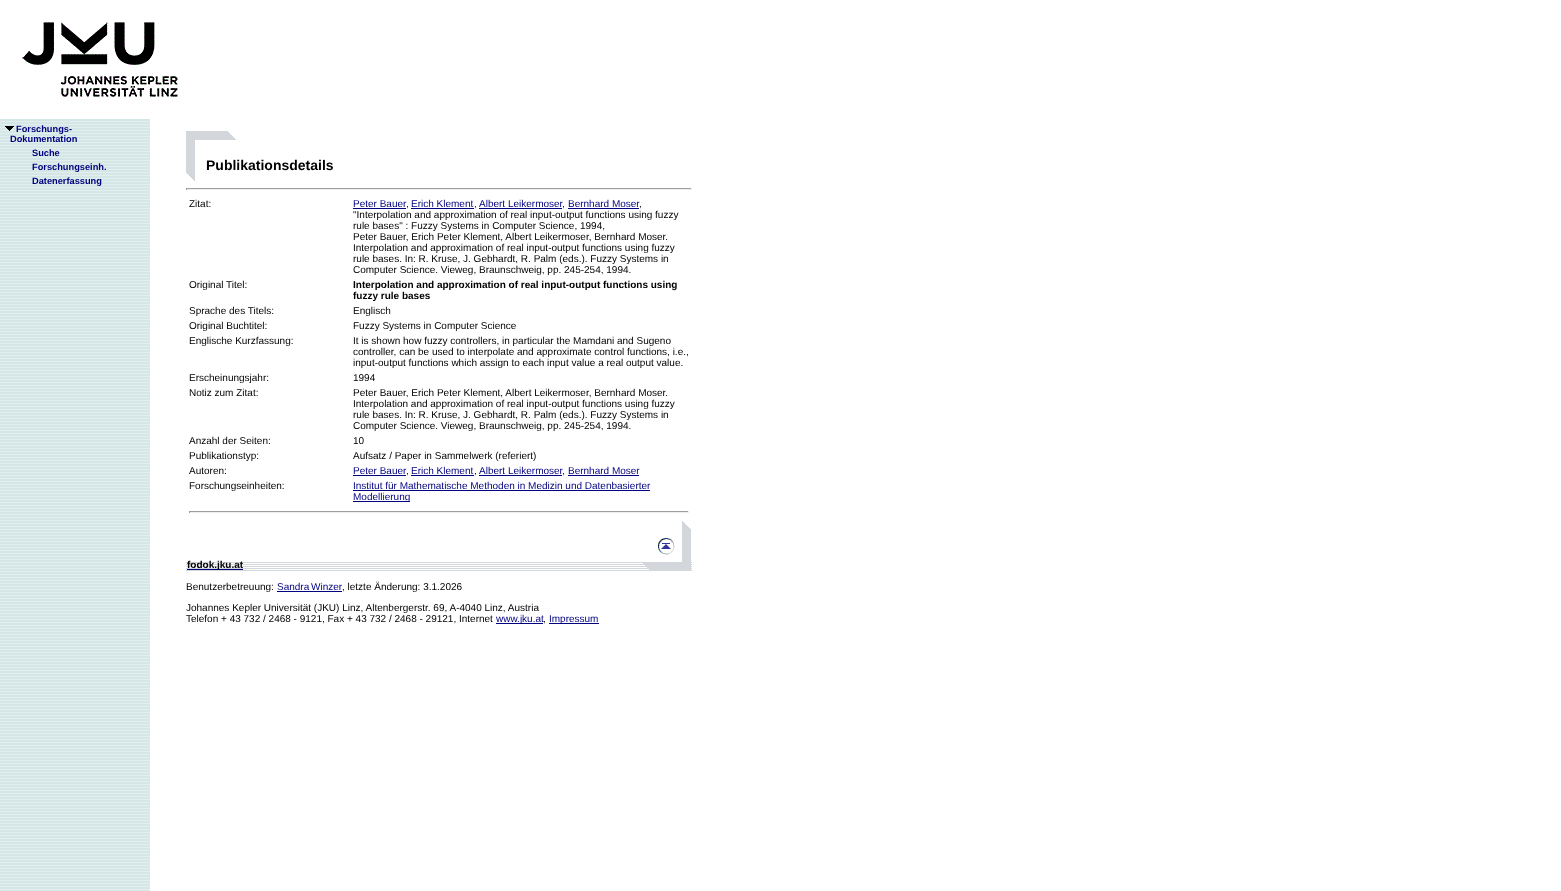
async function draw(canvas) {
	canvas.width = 1561;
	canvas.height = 891;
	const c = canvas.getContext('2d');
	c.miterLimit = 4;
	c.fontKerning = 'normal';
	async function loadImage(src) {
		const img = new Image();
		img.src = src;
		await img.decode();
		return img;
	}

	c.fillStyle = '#fff';
	c.fillRect(0, 0, 1561, 891);
	c.drawImage(await loadImage('img1.png'), 22, 22, 156, 75);
	c.drawImage(await loadImage('img2.png'), 0, 119, 150, 772);
	c.drawImage(await loadImage('img3.png'), 5, 126, 9, 5);
	c.font = 'bold 9.25px Liberation Sans';
	c.fillStyle = '#000080';
	for (const [text, x, y] of [
		['Forschungs-', 16, 132],
		['Dokumentation', 10, 142],
		['Suche', 32, 156],
		['Forschungseinh.', 32, 170],
		['Datenerfassung', 32, 184],
	]) {
		c.fillText(text, x, y);
	}
	c.drawImage(await loadImage('img4.png'), 186, 131, 50, 50);
	c.font = 'bold 14px Liberation Sans';
	c.fillStyle = '#000';
	c.fillText('Publikationsdetails', 206, 170);
	for (const [x, y, w, h, color] of [
		[186, 188, 506, 1, '#9f9f9f'],
		[691, 188, 1, 2, '#eee'],
		[186, 189, 506, 1, '#eee'],
		[186, 188, 1, 2, '#9f9f9f'],
	]) {
		c.fillStyle = color;
		c.fillRect(x, y, w, h);
	}
	c.font = '10px Liberation Sans';
	c.fillStyle = '#000';
	c.fillText('Zitat:', 189, 207);
	c.fillStyle = '#000080';
	c.fillText('Peter Bauer', 353, 207);
	c.fillRect(353, 208, 53, 1);
	c.fillStyle = '#000';
	c.fillText(',', 406, 207);
	c.fillStyle = '#000080';
	c.fillText('Erich Klement', 411, 207);
	c.fillRect(411, 208, 63, 1);
	c.fillStyle = '#000';
	c.fillText(',', 474, 207);
	c.fillStyle = '#000080';
	c.fillText('Albert Leikermoser', 479, 207);
	c.fillRect(479, 208, 83, 1);
	c.fillStyle = '#000';
	c.fillText(',', 562, 207);
	c.fillStyle = '#000080';
	c.fillText('Bernhard Moser', 568, 207);
	c.fillRect(568, 208, 71, 1);
	c.fillStyle = '#000';
	for (const [text, x, y] of [
		[',', 639, 207],
		['"Interpolation and approximation of real input-output functions using fuzzy', 353, 218],
		['rule bases" : Fuzzy Systems in Computer Science, 1994,', 353, 229],
		['Peter Bauer, Erich Peter Klement, Albert Leikermoser, Bernhard Moser.', 353, 240],
		['Interpolation and approximation of real input-output functions using fuzzy', 353, 251],
		['rule bases. In: R. Kruse, J. Gebhardt, R. Palm (eds.). Fuzzy Systems in', 353, 262],
		['Computer Science. Vieweg, Braunschweig, pp. 245-254, 1994.', 353, 273],
		['Original Titel:', 189, 288],
	]) {
		c.fillText(text, x, y);
	}
	c.font = 'bold 10px Liberation Sans';
	c.fillText('Interpolation and approximation of real input-output functions using', 353, 288);
	c.fillText('fuzzy rule bases', 353, 299);
	c.font = '10px Liberation Sans';
	for (const [text, x, y] of [
		['Sprache des Titels:', 189, 314],
		['Englisch', 353, 314],
		['Original Buchtitel:', 189, 329],
		['Fuzzy Systems in Computer Science', 353, 329],
		['Englische Kurzfassung:', 189, 344],
		['It is shown how fuzzy controllers, in particular the Mamdani and Sugeno', 353, 344],
		['controller, can be used to interpolate and approximate control functions, i.e.,', 353, 355],
		['input-output functions which assign to each input value a real output value.', 353, 366],
		['Erscheinungsjahr:', 189, 381],
		['1994', 353, 381],
		['Notiz zum Zitat:', 189, 396],
		['Peter Bauer, Erich Peter Klement, Albert Leikermoser, Bernhard Moser.', 353, 396],
		['Interpolation and approximation of real input-output functions using fuzzy', 353, 407],
		['rule bases. In: R. Kruse, J. Gebhardt, R. Palm (eds.). Fuzzy Systems in', 353, 418],
		['Computer Science. Vieweg, Braunschweig, pp. 245-254, 1994.', 353, 429],
		['Anzahl der Seiten:', 189, 444],
		['10', 353, 444],
		['Publikationstyp:', 189, 459],
		['Aufsatz / Paper in Sammelwerk (referiert)', 353, 459],
		['Autoren:', 189, 474],
	]) {
		c.fillText(text, x, y);
	}
	c.fillStyle = '#000080';
	c.fillText('Peter Bauer', 353, 474);
	c.fillRect(353, 475, 53, 1);
	c.fillStyle = '#000';
	c.fillText(',', 406, 474);
	c.fillStyle = '#000080';
	c.fillText('Erich Klement', 411, 474);
	c.fillRect(411, 475, 63, 1);
	c.fillStyle = '#000';
	c.fillText(',', 474, 474);
	c.fillStyle = '#000080';
	c.fillText('Albert Leikermoser', 479, 474);
	c.fillRect(479, 475, 83, 1);
	c.fillStyle = '#000';
	c.fillText(',', 562, 474);
	c.fillStyle = '#000080';
	c.fillText('Bernhard Moser', 568, 474);
	c.fillRect(568, 475, 71, 1);
	c.fillStyle = '#000';
	c.fillText('Forschungseinheiten:', 189, 489);
	c.fillStyle = '#000080';
	c.fillText('Institut für Mathematische Methoden in Medizin und Datenbasierter', 353, 489);
	c.fillRect(353, 490, 297, 1);
	c.fillRect(353, 501, 57, 1);
	c.fillText('Modellierung', 353, 500);
	for (const [x, y, w, h, color] of [
		[189, 511, 500, 1, '#9f9f9f'],
		[688, 511, 1, 2, '#eee'],
		[189, 512, 500, 1, '#eee'],
		[189, 511, 1, 2, '#9f9f9f'],
	]) {
		c.fillStyle = color;
		c.fillRect(x, y, w, h);
	}
	c.drawImage(await loadImage('img5.png'), 186, 562, 506, 9);
	c.fillStyle = '#000080';
	c.fillRect(187, 569, 56, 1);
	c.font = 'bold 10px Liberation Sans';
	c.fillStyle = '#000';
	c.fillText('fodok.jku.at', 187, 568);
	c.drawImage(await loadImage('img6.png'), 643, 521, 48, 49);
	c.drawImage(await loadImage('img7.png'), 658, 538, 17, 17);
	c.font = '10px Liberation Sans';
	c.fillText('Benutzerbetreuung:', 186, 590);
	c.wordSpacing = '-1px';
	c.fillStyle = '#000080';
	c.fillText('Sandra Winzer', 277, 590);
	c.fillRect(277, 591, 65, 1);
	c.wordSpacing = '0px';
	c.fillStyle = '#000';
	for (const [text, x, y] of [
		[', letzte Änderung: 3.1.2026', 342, 590],
		['Johannes Kepler Universität (JKU) Linz, Altenbergerstr. 69, A-4040 Linz, Austria', 186, 611],
		['Telefon + 43 732 / 2468 - 9121, Fax + 43 732 / 2468 - 29121, Internet', 186, 622],
	]) {
		c.fillText(text, x, y);
	}
	c.fillStyle = '#000080';
	c.fillRect(496, 623, 47, 1);
	c.fillText('www.jku.at', 496, 622);
	c.fillStyle = '#000';
	c.fillText(',', 543, 622);
	c.fillStyle = '#000080';
	c.fillRect(549, 623, 50, 1);
	c.fillText('Impressum', 549, 622);
}

draw(document.querySelector('canvas'));
